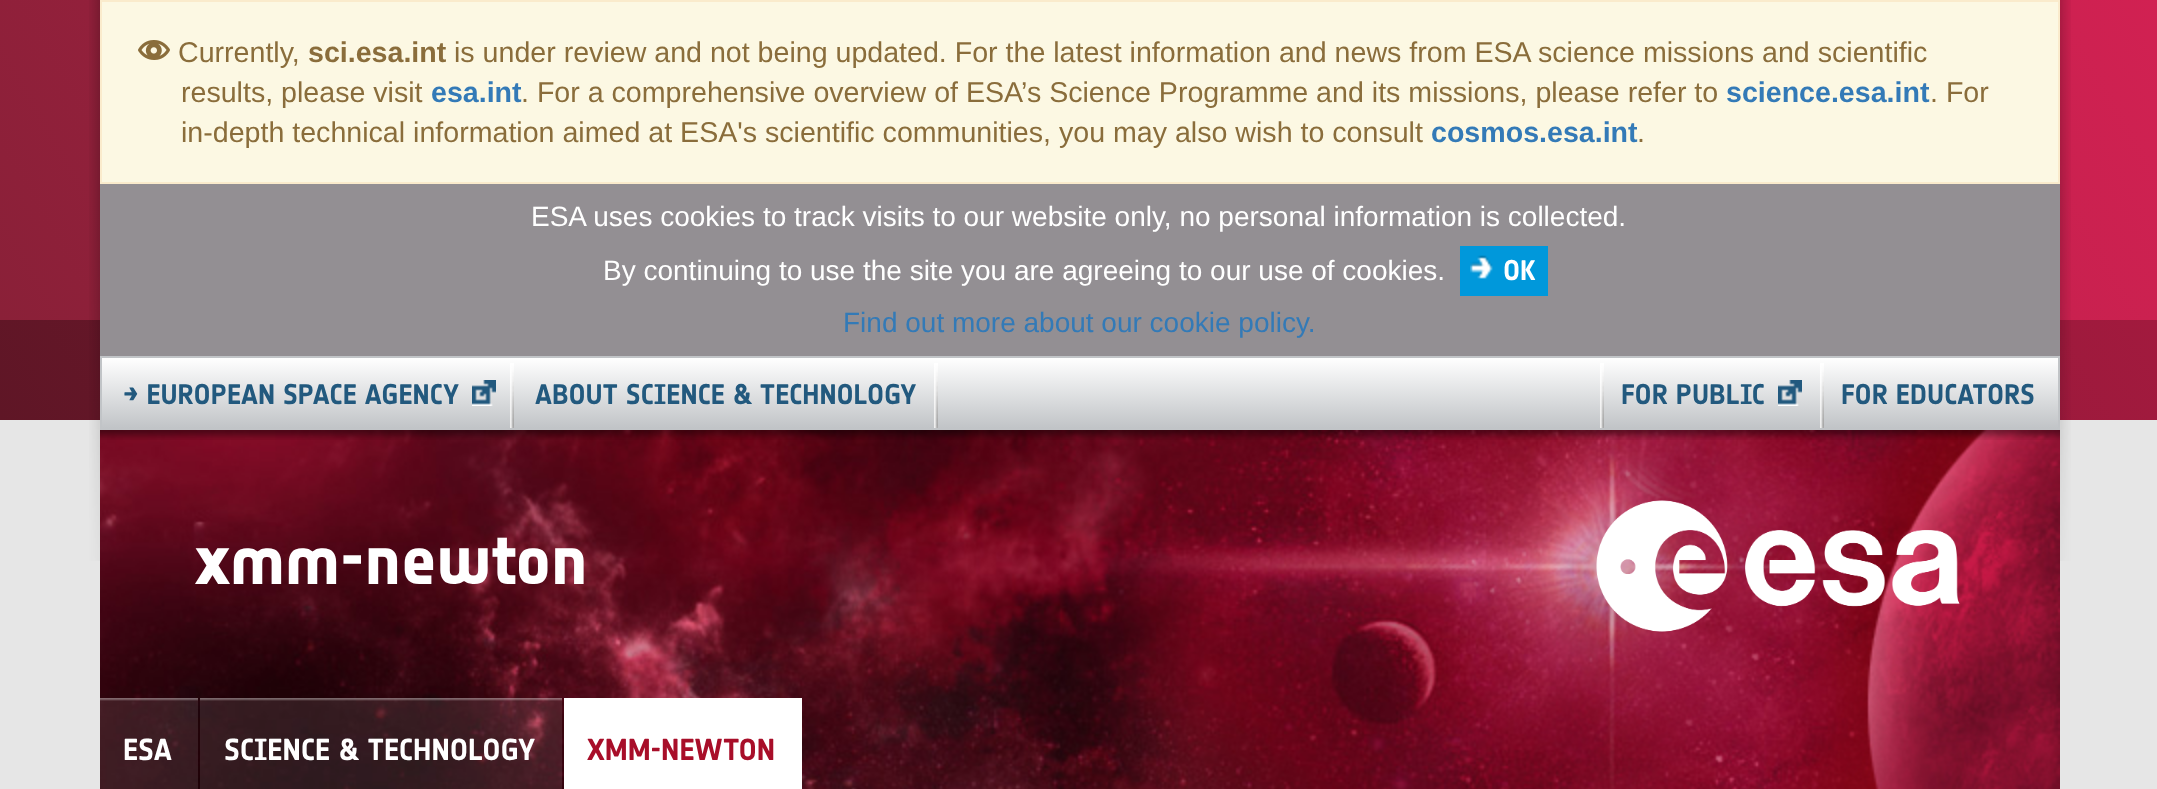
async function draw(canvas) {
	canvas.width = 2157;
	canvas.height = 789;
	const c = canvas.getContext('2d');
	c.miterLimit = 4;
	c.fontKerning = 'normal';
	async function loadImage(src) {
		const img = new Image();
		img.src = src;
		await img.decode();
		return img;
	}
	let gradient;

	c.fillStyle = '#e6e6e6';
	c.fillRect(0, 0, 2157, 789);
	gradient = c.createLinearGradient(200, 667, 1958, -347);
	gradient.addColorStop(0, '#8a2038');
	gradient.addColorStop(1, '#d12152');
	c.fillStyle = gradient;
	c.fillRect(0, 0, 2157, 320);
	gradient = c.createLinearGradient(248, 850, 1910, -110);
	gradient.addColorStop(0, '#5f1626');
	gradient.addColorStop(1, '#a21a3e');
	c.fillStyle = gradient;
	c.fillRect(0, 320, 2157, 100);
	c.drawImage(await loadImage('img1.png'), 89, 0, 11, 561);
	c.fillStyle = '#fcf8e3';
	c.beginPath();
	c.rect(101, 1, 1958, 182);
	c.fill();
	c.strokeStyle = '#faebcc';
	c.lineWidth = 2;
	c.stroke();
	c.drawImage(await loadImage('img2.png'), 138, 40, 32, 20);
	c.font = '28.6px Liberation Sans';
	c.fillStyle = '#8a6d3b';
	c.fillText('Currently,', 178, 62);
	c.font = 'bold 28.6px Liberation Sans';
	c.fillText('sci.esa.int', 308, 62);
	c.font = '28.6px Liberation Sans';
	c.fillText('is under review and not being updated. For the latest information and news from ESA science missions and scientific', 454, 62);
	c.fillText('results, please visit', 181, 102);
	c.font = 'bold 28.6px Liberation Sans';
	c.fillStyle = '#337ab7';
	c.fillText('esa.int', 431, 102);
	c.font = '28.6px Liberation Sans';
	c.fillStyle = '#8a6d3b';
	c.fillText('. For a comprehensive overview of ESA’s Science Programme and its missions, please refer to', 521, 102);
	c.font = 'bold 28.6px Liberation Sans';
	c.fillStyle = '#337ab7';
	c.fillText('science.esa.int', 1726, 102);
	c.font = '28.6px Liberation Sans';
	c.fillStyle = '#8a6d3b';
	c.fillText('. For', 1930, 102);
	c.fillText('in-depth technical information aimed at ESA\'s scientific communities, you may also wish to consult', 181, 142);
	c.font = 'bold 28.6px Liberation Sans';
	c.fillStyle = '#337ab7';
	c.fillText('cosmos.esa.int', 1431, 142);
	c.font = '28.6px Liberation Sans';
	c.fillStyle = '#8a6d3b';
	c.fillText('.', 1637, 142);
	c.drawImage(await loadImage('img3.png'), 2060, 0, 11, 561);
	c.fillStyle = '#938f93';
	c.fillRect(100, 184, 1960, 172);
	c.font = '28px Liberation Sans';
	c.fillStyle = '#fff';
	c.fillText('ESA uses cookies to track visits to our website only, no personal information is collected.', 531, 226);
	c.fillText('By continuing to use the site you are agreeing to our use of cookies.', 603, 280);
	c.fillStyle = '#0098db';
	c.fillRect(1460, 246, 88, 50);
	c.drawImage(await loadImage('img4.png'), 1470, 255, 23, 24);
	c.font = 'bold 28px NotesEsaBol';
	c.fillStyle = '#fff';
	c.fillText('OK', 1503, 280);
	c.font = '28px Liberation Sans';
	c.fillStyle = '#337ab7';
	c.fillText('Find out more about our cookie policy.', 843, 332);
	gradient = c.createLinearGradient(1080, 358, 1080, 428);
	gradient.addColorStop(0, '#fff');
	gradient.addColorStop(1, '#c1c4c7');
	c.fillStyle = gradient;
	c.fillRect(102, 358, 1956, 70);
	c.strokeStyle = '#c1c4c7';
	c.strokeRect(101, 357, 1958, 72);
	c.drawImage(await loadImage('img5.png'), 510, 363, 4, 65);
	c.drawImage(await loadImage('img6.png'), 472, 380, 24, 26);
	c.font = 'bold 28px NotesEsaBol';
	c.fillStyle = '#22597e';
	c.fillText('→ EUROPEAN SPACE AGENCY', 123, 404);
	c.drawImage(await loadImage('img5.png'), 934, 363, 4, 65);
	c.fillText('ABOUT SCIENCE & TECHNOLOGY', 535, 404);
	c.drawImage(await loadImage('img5.png'), 1600, 363, 4, 65);
	c.drawImage(await loadImage('img6.png'), 1778, 380, 24, 26);
	c.fillText('FOR PUBLIC', 1621, 404);
	c.drawImage(await loadImage('img5.png'), 1820, 363, 4, 65);
	c.fillText('FOR EDUCATORS', 1841, 404);
	c.drawImage(await loadImage('img7.png'), 100, 430, 1960, 359);
	c.drawImage(await loadImage('img8.png'), 100, 430, 1960, 10);
	c.font = 'bold 70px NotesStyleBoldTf';
	c.fillStyle = '#fff';
	c.fillText('xmm-newton', 195, 584);
	c.drawImage(await loadImage('img9.png'), 1596, 500, 364, 132);
	c.drawImage(await loadImage('img10.png'), 100, 698, 98, 91);
	c.font = 'bold 30px NotesEsaBol';
	c.fillText('ESA', 123, 760);
	c.drawImage(await loadImage('img11.png'), 200, 698, 362, 91);
	c.fillText('SCIENCE & TECHNOLOGY', 224, 760);
	c.fillRect(564, 698, 238, 91);
	c.fillStyle = '#a80e29';
	c.fillText('XMM-NEWTON', 587, 760);
}

draw(document.querySelector('canvas'));
